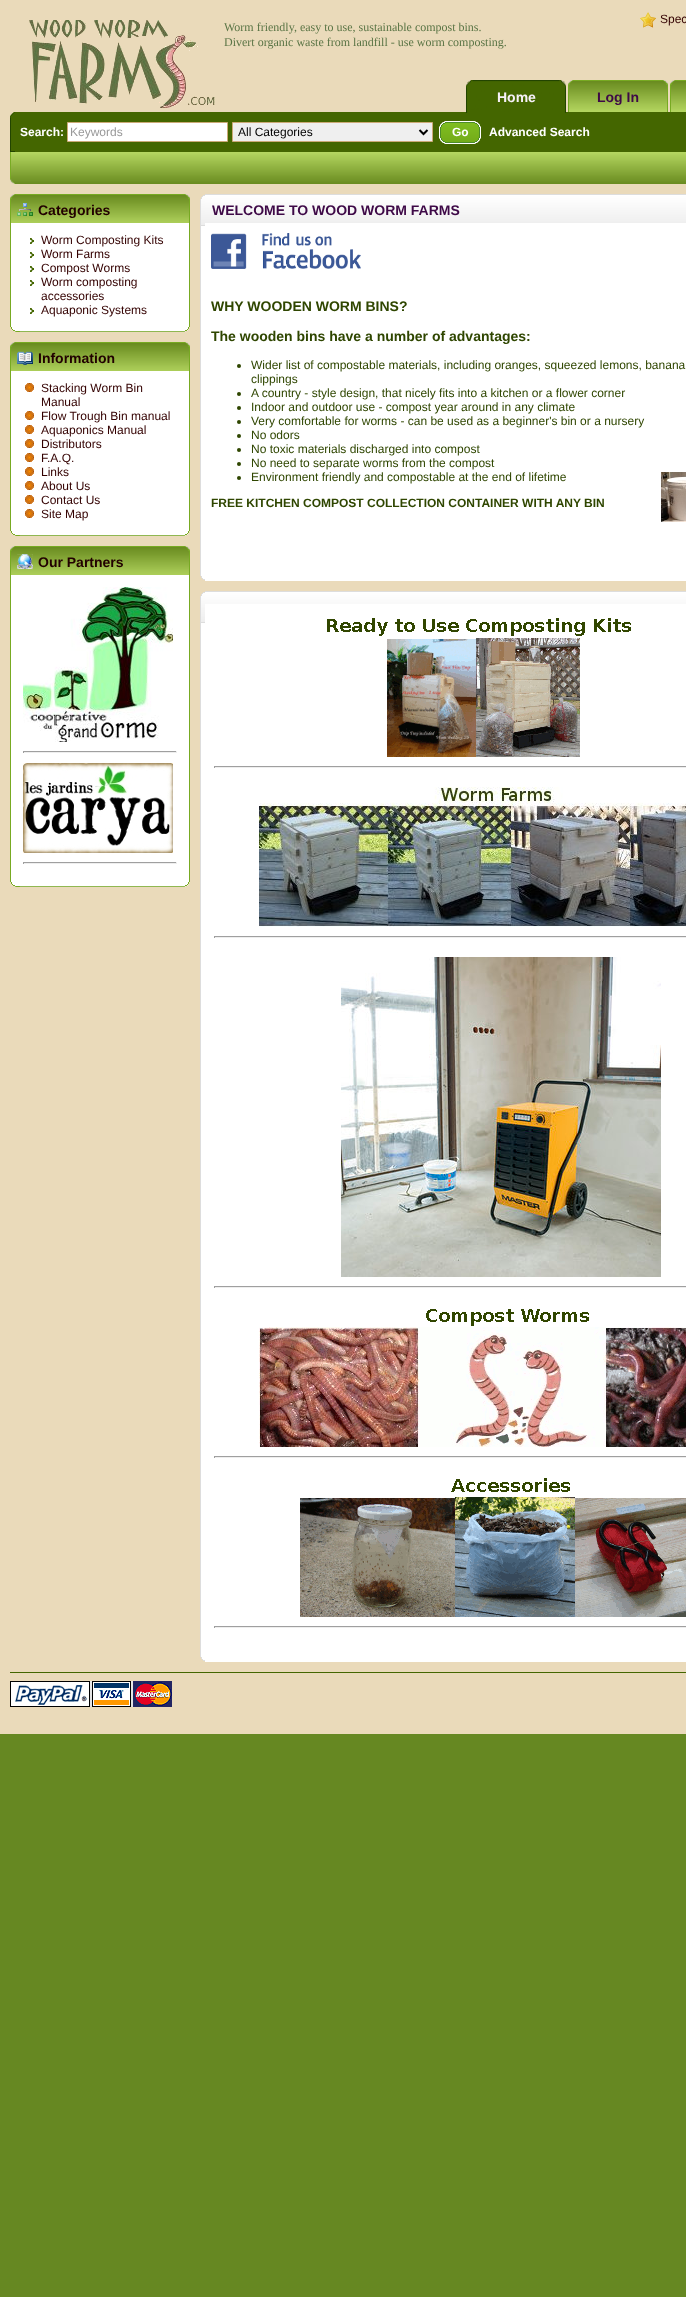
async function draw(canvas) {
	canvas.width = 686;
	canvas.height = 2297;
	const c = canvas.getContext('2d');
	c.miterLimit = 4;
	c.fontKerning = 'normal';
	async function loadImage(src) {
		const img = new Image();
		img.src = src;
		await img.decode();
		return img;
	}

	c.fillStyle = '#682';
	c.fillRect(0, 0, 686, 2297);
	c.fillStyle = '#eadaba';
	c.fillRect(0, 0, 686, 1734);
	c.drawImage(await loadImage('img1.png'), 29, 20, 186, 88);
	c.font = '12px Liberation Serif';
	c.fillStyle = '#5b7546';
	c.fillText('Worm friendly, easy to use, sustainable compost bins.', 224, 31);
	c.fillText('Divert organic waste from landfill - use worm composting.', 224, 46);
	c.drawImage(await loadImage('img2.png'), 640, 12, 16, 16);
	c.font = '12px Liberation Sans';
	c.fillStyle = '#300';
	c.fillText('Spec', 660, 23);
	c.fillStyle = '#460';
	c.fillRect(15, 112, 671, 40);
	c.drawImage(await loadImage('img3.png'), 466, 80, 100, 33);
	c.font = 'bold 14px Liberation Sans';
	c.fillStyle = '#f7f1f8';
	c.fillText('Home', 497, 102);
	c.drawImage(await loadImage('img4.png'), 568, 80, 100, 32);
	c.fillStyle = '#3e0947';
	c.fillText('Log In', 597, 102);
	c.drawImage(await loadImage('img5.png'), 670, 80, 16, 32);
	c.drawImage(await loadImage('img6.png'), 10, 112, 5, 40);
	c.font = 'bold 12px Liberation Sans';
	c.fillStyle = '#fff';
	c.fillText('Search:', 20, 136);
	c.beginPath();
	c.rect(67.5, 122.5, 160, 19);
	c.fill();
	c.strokeStyle = '#ca7';
	c.stroke();
	c.font = '12px Liberation Sans';
	c.fillStyle = '#999';
	c.fillText('Keywords', 70, 136);
	c.fillStyle = '#efefef';
	c.beginPath();
	c.rect(232.5, 122.5, 200, 19);
	c.fill();
	c.stroke();
	c.beginPath();
	c.moveTo(419.5, 130);
	c.lineTo(423.5, 134);
	c.lineTo(427.5, 130);
	c.strokeStyle = '#000';
	c.lineWidth = 2;
	c.stroke();
	c.fillStyle = '#000';
	c.fillText('All Categories', 238, 136);
	c.drawImage(await loadImage('img7.png'), 439, 121, 9, 23);
	c.drawImage(await loadImage('img8.png'), 448, 121, 33, 23);
	c.font = 'bold 12px Liberation Sans';
	c.fillStyle = '#fff';
	c.fillText('Go', 452, 136);
	c.fillText('Advanced Search', 489, 136);
	c.drawImage(await loadImage('img9.png'), 10, 152, 5, 32);
	c.drawImage(await loadImage('img10.png'), 15, 152, 671, 32);
	c.drawImage(await loadImage('img11.png'), 10, 194, 180, 29);
	c.drawImage(await loadImage('img12.png'), 17, 203, 16, 13);
	c.font = 'bold 14px Liberation Sans';
	c.fillStyle = '#200';
	c.fillText('Categories', 38, 215);
	for (const [x, y, w, h, color] of [
		[11, 223, 178, 104, '#fff'],
		[189, 223, 1, 104, '#7a2'],
		[10, 223, 1, 104, '#7a2'],
	]) {
		c.fillStyle = color;
		c.fillRect(x, y, w, h);
	}
	c.drawImage(await loadImage('img13.png'), 30, 238, 4, 6);
	c.font = '12px Liberation Sans';
	c.fillStyle = '#300';
	c.fillText('Worm Composting Kits', 41, 244);
	c.drawImage(await loadImage('img13.png'), 30, 252, 4, 6);
	c.fillText('Worm Farms', 41, 258);
	c.drawImage(await loadImage('img13.png'), 30, 266, 4, 6);
	c.fillText('Compost Worms', 41, 272);
	c.drawImage(await loadImage('img13.png'), 30, 280, 4, 6);
	c.fillText('Worm composting', 41, 286);
	c.fillText('accessories', 41, 300);
	c.drawImage(await loadImage('img13.png'), 30, 308, 4, 6);
	c.fillText('Aquaponic Systems', 41, 314);
	c.drawImage(await loadImage('img14.png'), 11, 327, 179, 5);
	c.drawImage(await loadImage('img11.png'), 10, 342, 180, 29);
	c.drawImage(await loadImage('img15.png'), 17, 351, 16, 14);
	c.font = 'bold 14px Liberation Sans';
	c.fillStyle = '#200';
	c.fillText('Information', 38, 363);
	for (const [x, y, w, h, color] of [
		[11, 371, 178, 160, '#fff'],
		[189, 371, 1, 160, '#7a2'],
		[10, 371, 1, 160, '#7a2'],
	]) {
		c.fillStyle = color;
		c.fillRect(x, y, w, h);
	}
	c.drawImage(await loadImage('img16.png'), 25, 383, 9, 9);
	c.font = '12px Liberation Sans';
	c.fillStyle = '#300';
	c.fillText('Stacking Worm Bin', 41, 392);
	c.fillText('Manual', 41, 406);
	c.drawImage(await loadImage('img16.png'), 25, 411, 9, 9);
	c.fillText('Flow Trough Bin manual', 41, 420);
	c.drawImage(await loadImage('img16.png'), 25, 425, 9, 9);
	c.fillText('Aquaponics Manual', 41, 434);
	c.drawImage(await loadImage('img16.png'), 25, 439, 9, 9);
	c.fillText('Distributors', 41, 448);
	c.drawImage(await loadImage('img16.png'), 25, 453, 9, 9);
	c.fillText('F.A.Q.', 41, 462);
	c.drawImage(await loadImage('img16.png'), 25, 467, 9, 9);
	c.fillText('Links', 41, 476);
	c.drawImage(await loadImage('img16.png'), 25, 481, 9, 9);
	c.fillText('About Us', 41, 490);
	c.drawImage(await loadImage('img16.png'), 25, 495, 9, 9);
	c.fillText('Contact Us', 41, 504);
	c.drawImage(await loadImage('img16.png'), 25, 509, 9, 9);
	c.fillText('Site Map', 41, 518);
	c.drawImage(await loadImage('img14.png'), 11, 531, 179, 5);
	c.drawImage(await loadImage('img11.png'), 10, 546, 180, 29);
	c.drawImage(await loadImage('img17.png'), 17, 554, 16, 16);
	c.font = 'bold 14px Liberation Sans';
	c.fillStyle = '#200';
	c.fillText('Our Partners', 38, 567);
	for (const [x, y, w, h, color] of [
		[11, 575, 178, 307, '#fff'],
		[189, 575, 1, 307, '#7a2'],
		[10, 575, 1, 307, '#7a2'],
	]) {
		c.fillStyle = color;
		c.fillRect(x, y, w, h);
	}
	c.drawImage(await loadImage('img18.png'), 23, 587, 150, 155);
	for (const [x, y, w, h, color] of [
		[23, 751, 154, 1, '#9f9f9f'],
		[176, 751, 1, 2, '#eee'],
		[23, 752, 154, 1, '#eee'],
		[23, 751, 1, 2, '#9f9f9f'],
	]) {
		c.fillStyle = color;
		c.fillRect(x, y, w, h);
	}
	c.drawImage(await loadImage('img19.png'), 23, 763, 150, 90);
	for (const [x, y, w, h, color] of [
		[23, 862, 154, 1, '#9f9f9f'],
		[176, 862, 1, 2, '#eee'],
		[23, 863, 154, 1, '#eee'],
		[23, 862, 1, 2, '#9f9f9f'],
	]) {
		c.fillStyle = color;
		c.fillRect(x, y, w, h);
	}
	c.drawImage(await loadImage('img14.png'), 11, 882, 179, 5);
	c.fillStyle = '#fff';
	c.fillRect(201, 223, 485, 353);
	c.fillStyle = '#ddd';
	c.fillRect(200, 223, 1, 353);
	c.drawImage(await loadImage('img20.png'), 200, 195, 5, 31);
	c.drawImage(await loadImage('img21.png'), 205, 194, 481, 29);
	c.fillStyle = '#3e0947';
	c.fillText('WELCOME TO WOOD WORM FARMS', 212, 215);
	c.drawImage(await loadImage('img22.png'), 211, 233, 150, 36);
	c.fillStyle = '#2f4600';
	c.fillText('WHY WOODEN WORM BINS?', 211, 311);
	c.fillText('The wooden bins have a number of advantages:', 211, 341);
	c.beginPath();
	c.arc(239, 366, 2, 0, 2 * Math.PI);
	c.fill();
	c.font = '12px Liberation Sans';
	c.fillText('Wider list of compostable materials, including oranges, squeezed lemons, banana', 251, 369);
	c.fillText('clippings', 251, 383);
	c.beginPath();
	c.arc(239, 394, 2, 0, 2 * Math.PI);
	c.fill();
	c.fillText('A country - style design, that nicely fits into a kitchen or a flower corner', 251, 397);
	c.beginPath();
	c.arc(239, 408, 2, 0, 2 * Math.PI);
	c.fill();
	c.fillText('Indoor and outdoor use - compost year around in any climate', 251, 411);
	c.beginPath();
	c.arc(239, 422, 2, 0, 2 * Math.PI);
	c.fill();
	c.fillText('Very comfortable for worms - can be used as a beginner\'s bin or a nursery', 251, 425);
	c.beginPath();
	c.arc(239, 436, 2, 0, 2 * Math.PI);
	c.fill();
	c.fillText('No odors', 251, 439);
	c.beginPath();
	c.arc(239, 450, 2, 0, 2 * Math.PI);
	c.fill();
	c.fillText('No toxic materials discharged into compost', 251, 453);
	c.beginPath();
	c.arc(239, 464, 2, 0, 2 * Math.PI);
	c.fill();
	c.fillText('No need to separate worms from the compost', 251, 467);
	c.beginPath();
	c.arc(239, 478, 2, 0, 2 * Math.PI);
	c.fill();
	c.fillText('Environment friendly and compostable at the end of lifetime', 251, 481);
	c.font = 'bold 12px Liberation Sans';
	c.fillText('FREE KITCHEN COMPOST COLLECTION CONTAINER WITH ANY BIN', 211, 507);
	c.drawImage(await loadImage('img23.png'), 661, 472, 25, 50);
	c.drawImage(await loadImage('img24.png'), 201, 576, 4, 4);
	c.fillStyle = '#fff';
	c.fillRect(205, 576, 481, 5);
	c.fillRect(201, 604, 485, 1053);
	c.drawImage(await loadImage('img20.png'), 200, 592, 5, 31);
	c.drawImage(await loadImage('img25.png'), 205, 591, 481, 13);
	c.fillStyle = '#ddd';
	c.fillRect(200, 623, 1, 1034);
	c.drawImage(await loadImage('img26.png'), 327, 618, 304, 139);
	for (const [x, y, w, h, color] of [
		[214, 766, 472, 1, '#9f9f9f'],
		[214, 767, 472, 1, '#eee'],
		[214, 766, 1, 2, '#9f9f9f'],
	]) {
		c.fillStyle = color;
		c.fillRect(x, y, w, h);
	}
	c.drawImage(await loadImage('img27.png'), 259, 787, 427, 140);
	for (const [x, y, w, h, color] of [
		[214, 936, 472, 1, '#9f9f9f'],
		[214, 937, 472, 1, '#eee'],
		[214, 936, 1, 2, '#9f9f9f'],
	]) {
		c.fillStyle = color;
		c.fillRect(x, y, w, h);
	}
	c.drawImage(await loadImage('img28.png'), 341, 957, 320, 320);
	for (const [x, y, w, h, color] of [
		[214, 1286, 472, 1, '#9f9f9f'],
		[214, 1287, 472, 1, '#eee'],
		[214, 1286, 1, 2, '#9f9f9f'],
	]) {
		c.fillStyle = color;
		c.fillRect(x, y, w, h);
	}
	c.drawImage(await loadImage('img29.png'), 259, 1309, 427, 138);
	for (const [x, y, w, h, color] of [
		[214, 1456, 472, 1, '#9f9f9f'],
		[214, 1457, 472, 1, '#eee'],
		[214, 1456, 1, 2, '#9f9f9f'],
	]) {
		c.fillStyle = color;
		c.fillRect(x, y, w, h);
	}
	c.drawImage(await loadImage('img30.png'), 300, 1478, 386, 139);
	for (const [x, y, w, h, color] of [
		[214, 1626, 472, 1, '#9f9f9f'],
		[214, 1627, 472, 1, '#eee'],
		[214, 1626, 1, 2, '#9f9f9f'],
	]) {
		c.fillStyle = color;
		c.fillRect(x, y, w, h);
	}
	c.drawImage(await loadImage('img24.png'), 201, 1657, 4, 4);
	c.fillStyle = '#fff';
	c.fillRect(205, 1657, 481, 5);
	c.fillStyle = '#460';
	c.fillRect(10, 1672, 676, 1);
	c.drawImage(await loadImage('img31.png'), 10, 1681, 162, 26);
}

draw(document.querySelector('canvas'));
